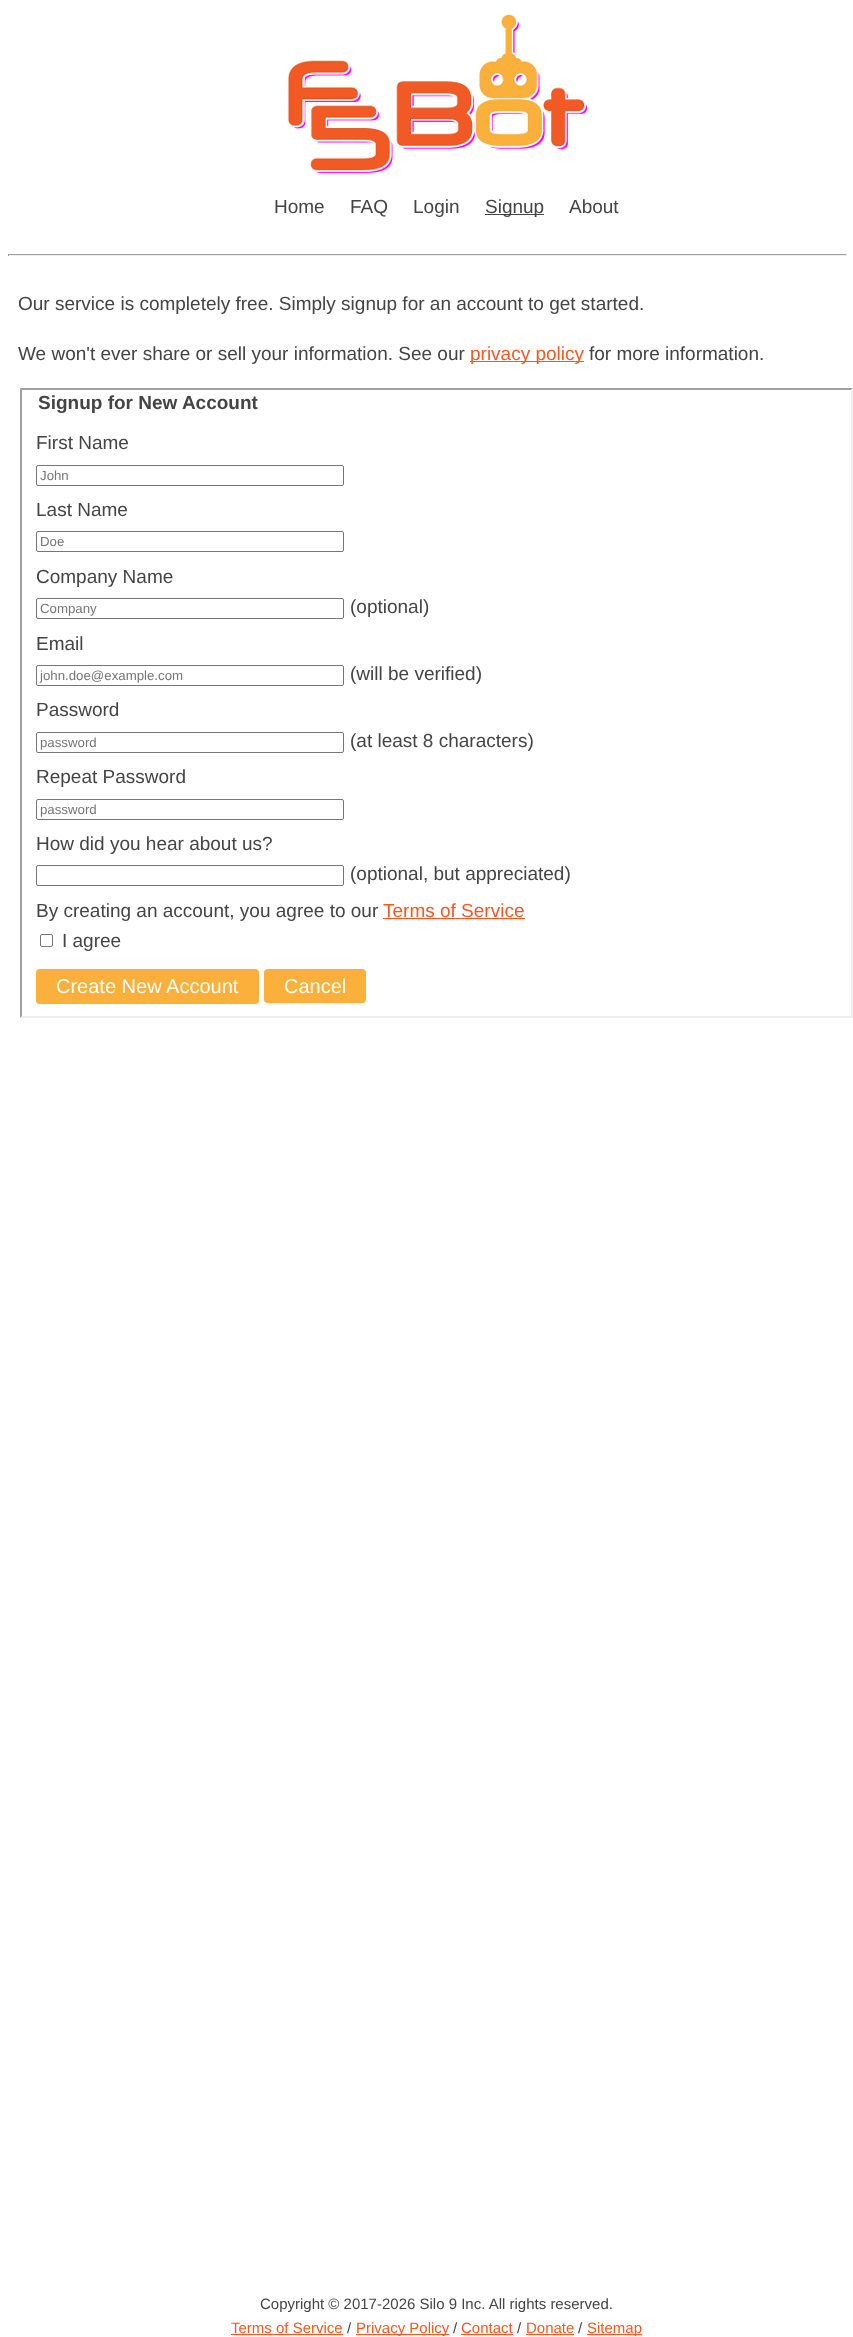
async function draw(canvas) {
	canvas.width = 853;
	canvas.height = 2337;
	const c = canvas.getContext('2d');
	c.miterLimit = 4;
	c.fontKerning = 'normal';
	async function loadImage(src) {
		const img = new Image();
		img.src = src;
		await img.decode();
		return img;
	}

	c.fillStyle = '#fff';
	c.fillRect(0, 0, 853, 2337);
	c.drawImage(await loadImage('img1.png'), 288, 14, 299, 159);
	c.font = '19px Liberation Sans';
	c.fillStyle = '#444';
	for (const [text, x, y] of [
		['Home', 274, 213],
		['FAQ', 350, 213],
		['Login', 413, 213],
	]) {
		c.fillText(text, x, y);
	}
	c.fillRect(485, 214, 59, 1);
	c.fillText('Signup', 485, 213);
	c.fillText('About', 569, 213);
	for (const [x, y, w, h, color] of [
		[8, 254, 839, 1, '#9f9f9f'],
		[846, 254, 1, 2, '#eee'],
		[8, 255, 839, 1, '#eee'],
		[8, 254, 1, 2, '#9f9f9f'],
	]) {
		c.fillStyle = color;
		c.fillRect(x, y, w, h);
	}
	c.fillStyle = '#444';
	c.fillText('Our service is completely free. Simply signup for an account to get started.', 18, 310);
	c.fillText('We won\'t ever share or sell your information. See our', 18, 360);
	c.fillStyle = '#f15a24';
	c.fillRect(470, 361, 114, 1);
	c.fillText('privacy policy', 470, 360);
	c.fillStyle = '#444';
	c.fillText('for more information.', 589, 360);
	c.fillStyle = '#9f9f9f';
	c.beginPath();
	c.moveTo(20, 388);
	c.lineTo(853, 388);
	c.lineTo(851, 390);
	c.lineTo(22, 390);
	c.closePath();
	c.fill();
	c.fillStyle = '#efefef';
	c.beginPath();
	c.moveTo(853, 388);
	c.lineTo(853, 1018);
	c.lineTo(851, 1016);
	c.lineTo(851, 390);
	c.closePath();
	c.fill();
	c.beginPath();
	c.moveTo(853, 1018);
	c.lineTo(20, 1018);
	c.lineTo(22, 1016);
	c.lineTo(851, 1016);
	c.closePath();
	c.fill();
	c.fillStyle = '#9f9f9f';
	c.beginPath();
	c.moveTo(20, 1018);
	c.lineTo(20, 388);
	c.lineTo(22, 390);
	c.lineTo(22, 1016);
	c.closePath();
	c.fill();
	c.font = 'bold 19px Liberation Sans';
	c.fillStyle = '#444';
	c.fillText('Signup for New Account', 38, 409);
	c.font = '19px Liberation Sans';
	c.fillText('First Name', 36, 449);
	c.beginPath();
	c.roundRect(36.5, 465.5, 307, 20, 1.5);
	c.strokeStyle = '#767676';
	c.stroke();
	c.font = '13.25px Liberation Sans';
	c.fillStyle = '#757575';
	c.fillText('John', 40, 480);
	c.font = '19px Liberation Sans';
	c.fillStyle = '#444';
	c.fillText('Last Name', 36, 516);
	c.beginPath();
	c.roundRect(36.5, 531.5, 307, 20, 1.5);
	c.stroke();
	c.font = '13.25px Liberation Sans';
	c.fillStyle = '#757575';
	c.fillText('Doe', 40, 546);
	c.font = '19px Liberation Sans';
	c.fillStyle = '#444';
	c.fillText('Company Name', 36, 583);
	c.beginPath();
	c.roundRect(36.5, 598.5, 307, 20, 1.5);
	c.stroke();
	c.font = '13.25px Liberation Sans';
	c.fillStyle = '#757575';
	c.fillText('Company', 40, 613);
	c.font = '19px Liberation Sans';
	c.fillStyle = '#444';
	c.fillText('(optional)', 350, 613);
	c.fillText('Email', 36, 650);
	c.beginPath();
	c.roundRect(36.5, 665.5, 307, 20, 1.5);
	c.stroke();
	c.font = '13.25px Liberation Sans';
	c.fillStyle = '#757575';
	c.fillText('john.doe@example.com', 40, 680);
	c.font = '19px Liberation Sans';
	c.fillStyle = '#444';
	c.fillText('(will be verified)', 350, 680);
	c.fillText('Password', 36, 716);
	c.beginPath();
	c.roundRect(36.5, 732.5, 307, 20, 1.5);
	c.stroke();
	c.font = '13.25px Liberation Sans';
	c.fillStyle = '#757575';
	c.fillText('password', 40, 747);
	c.font = '19px Liberation Sans';
	c.fillStyle = '#444';
	c.fillText('(at least 8 characters)', 350, 747);
	c.fillText('Repeat Password', 36, 783);
	c.beginPath();
	c.roundRect(36.5, 799.5, 307, 20, 1.5);
	c.stroke();
	c.font = '13.25px Liberation Sans';
	c.fillStyle = '#757575';
	c.fillText('password', 40, 814);
	c.font = '19px Liberation Sans';
	c.fillStyle = '#444';
	c.fillText('How did you hear about us?', 36, 850);
	c.beginPath();
	c.roundRect(36.5, 865.5, 307, 20, 1.5);
	c.stroke();
	c.fillText('(optional, but appreciated)', 350, 880);
	c.fillText('By creating an account, you agree to our', 36, 917);
	c.fillStyle = '#f15a24';
	c.fillText('Terms of Service', 383, 917);
	c.fillRect(383, 918, 142, 1);
	c.beginPath();
	c.roundRect(40.5, 934.5, 12, 12, 1.5);
	c.stroke();
	c.fillStyle = '#444';
	c.fillText('I agree', 62, 947);
	c.fillStyle = '#fbb03b';
	c.beginPath();
	c.roundRect(36, 969, 223, 35, 4);
	c.fill();
	c.font = '20px Liberation Sans';
	c.fillStyle = '#fff';
	c.fillText('Create New Account', 56, 993);
	c.fillStyle = '#fbb03b';
	c.beginPath();
	c.roundRect(264, 969, 102, 34, 4);
	c.fill();
	c.fillStyle = '#fff';
	c.fillText('Cancel', 284, 993);
	c.font = '15px Liberation Sans';
	c.fillStyle = '#444';
	c.fillText('Copyright © 2017-2026 Silo 9 Inc. All rights reserved.', 260, 2309);
	c.fillStyle = '#f15a24';
	c.fillText('Terms of Service', 231, 2333);
	c.fillRect(231, 2334, 112, 1);
	c.fillStyle = '#444';
	c.fillText('/', 347, 2333);
	c.fillStyle = '#f15a24';
	c.fillRect(356, 2334, 93, 1);
	c.fillText('Privacy Policy', 356, 2333);
	c.fillStyle = '#444';
	c.fillText('/', 453, 2333);
	c.fillStyle = '#f15a24';
	c.fillText('Contact', 461, 2333);
	c.fillRect(461, 2334, 52, 1);
	c.fillStyle = '#444';
	c.fillText('/', 517, 2333);
	c.fillStyle = '#f15a24';
	c.fillText('Donate', 526, 2333);
	c.fillRect(526, 2334, 48, 1);
	c.fillStyle = '#444';
	c.fillText('/', 578, 2333);
	c.fillStyle = '#f15a24';
	c.fillRect(587, 2334, 55, 1);
	c.fillText('Sitemap', 587, 2333);
}

draw(document.querySelector('canvas'));
